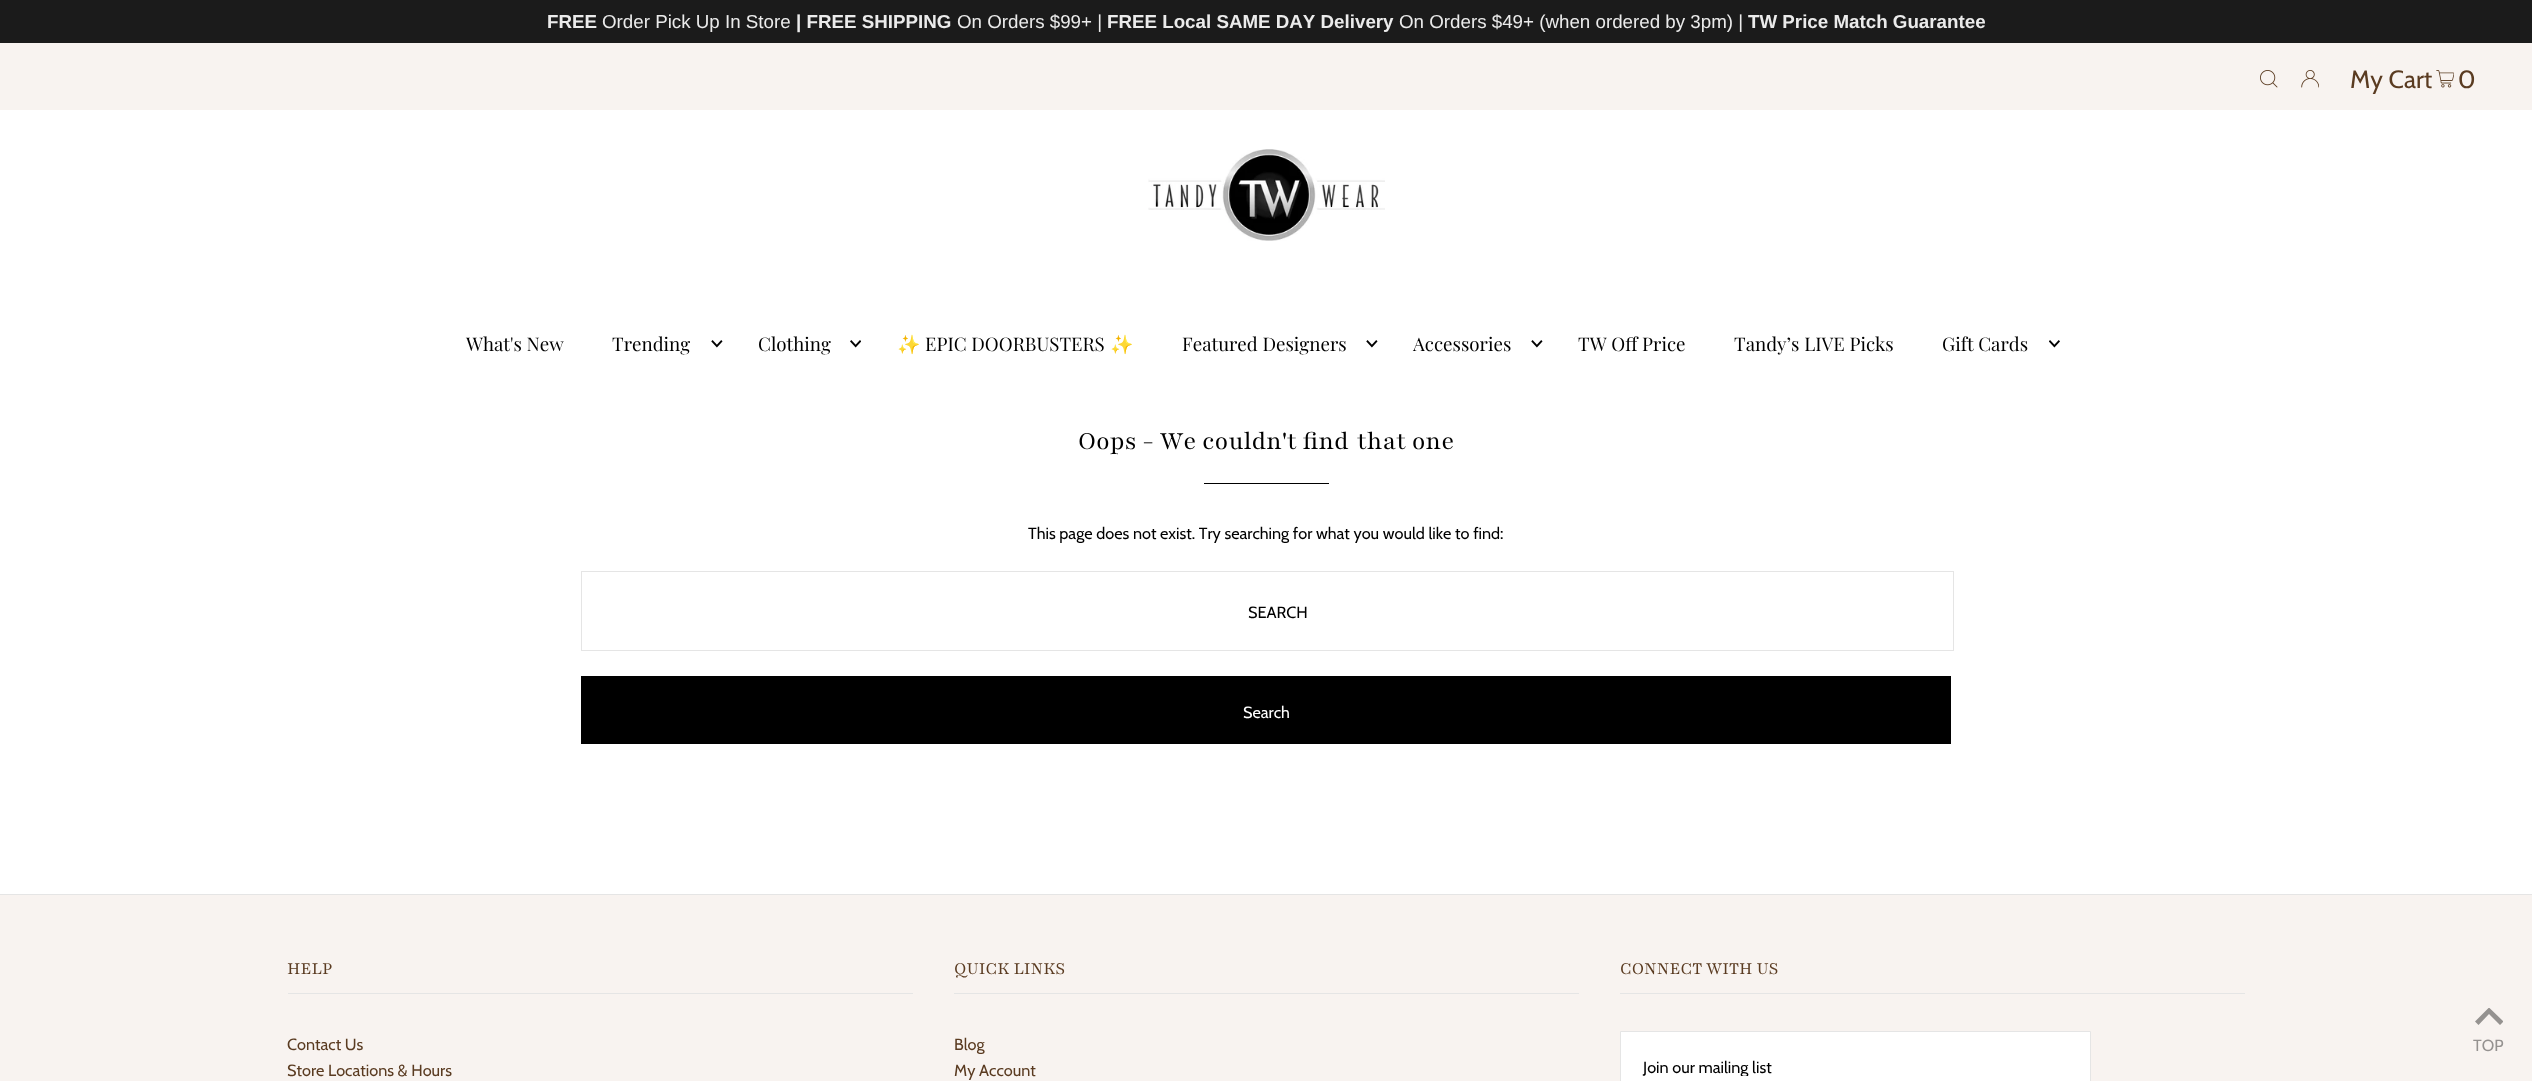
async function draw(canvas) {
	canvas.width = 2532;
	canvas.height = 1081;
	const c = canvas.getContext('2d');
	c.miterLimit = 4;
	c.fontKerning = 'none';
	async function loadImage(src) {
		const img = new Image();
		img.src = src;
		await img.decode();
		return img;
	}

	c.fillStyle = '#fff';
	c.fillRect(0, 0, 2532, 1081);
	c.fillStyle = '#1b1b1b';
	c.fillRect(0, 0, 2532, 43);
	c.font = 'bold 18.75px Liberation Sans';
	c.fillStyle = '#ebebeb';
	c.fillText('FREE', 547, 28);
	c.font = '18.75px Liberation Sans';
	c.fillText('Order Pick Up In Store', 602, 28);
	c.font = 'bold 18.75px Liberation Sans';
	c.fillText('| FREE SHIPPING', 796, 28);
	c.font = '18.75px Liberation Sans';
	c.fillText('On Orders $99+ |', 957, 28);
	c.font = 'bold 18.75px Liberation Sans';
	c.fillText('FREE Local SAME DAY Delivery', 1107, 28);
	c.font = '18.75px Liberation Sans';
	c.fillText('On Orders $49+ (when ordered by 3pm) |', 1399, 28);
	c.font = 'bold 18.75px Liberation Sans';
	c.fillText('TW Price Match Guarantee', 1748, 28);
	c.fillStyle = '#f8f3f0';
	c.fillRect(0, 43, 2532, 67);
	c.drawImage(await loadImage('img1.png'), 2260, 70, 18, 18);
	c.drawImage(await loadImage('img2.png'), 2301, 70, 18, 18);
	c.font = '25px Cabin';
	c.fillStyle = '#5a3b21';
	c.fillText('My Cart', 2350, 88);
	c.drawImage(await loadImage('img3.png'), 2436, 70, 18, 18);
	c.fillText('0', 2458, 88);
	c.drawImage(await loadImage('img4.png'), 1148, 149, 237, 92);
	c.font = '18.75px Playfair Display';
	c.fillStyle = '#000';
	c.fillText('What\'s New', 466, 351);
	c.fillText('Trending', 612, 351);
	c.drawImage(await loadImage('img5.png'), 711, 340, 12, 8);
	c.fillText('Clothing', 758, 351);
	c.drawImage(await loadImage('img6.png'), 850, 340, 11, 8);
	c.font = '18.75px Noto Color Emoji';
	c.fillText('✨', 897, 351);
	c.font = '18.75px Playfair Display';
	c.fillText('EPIC DOORBUSTERS', 925, 351);
	c.font = '18.75px Noto Color Emoji';
	c.fillText('✨', 1110, 351);
	c.font = '18.75px Playfair Display';
	c.fillText('Featured Designers', 1182, 351);
	c.drawImage(await loadImage('img5.png'), 1366, 340, 12, 8);
	c.fillText('Accessories', 1413, 351);
	c.drawImage(await loadImage('img5.png'), 1531, 340, 12, 8);
	for (const [text, x, y] of [
		['TW Off Price', 1578, 351],
		['Tandy’s LIVE Picks', 1734, 351],
		['Gift Cards', 1942, 351],
	]) {
		c.fillText(text, x, y);
	}
	c.drawImage(await loadImage('img7.png'), 2049, 340, 11, 8);
	c.font = '27.5px "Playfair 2"';
	c.fillText('Oops - We couldn\'t find', 1078, 449);
	c.fillText('that one', 1357, 449);
	c.fillRect(1204, 483, 125, 1);
	c.font = '16.25px Cabin';
	c.fillText('This page does not exist. Try searching for what you would like to find:', 1028, 539);
	c.strokeStyle = '#e5e5e5';
	c.strokeRect(581.5, 571.5, 1372, 79);
	c.fillText('SEARCH', 1248, 618);
	c.fillRect(581, 676, 1370, 68);
	c.fillStyle = '#fff';
	c.fillText('Search', 1243, 718);
	for (const [x, y, w, h, color] of [
		[0, 895, 2532, 186, '#f8f3f0'],
		[0, 894, 2532, 1, '#e5e5e5'],
		[288, 993, 625, 1, '#e5e5e5'],
	]) {
		c.fillStyle = color;
		c.fillRect(x, y, w, h);
	}
	c.font = '18.75px Playfair';
	c.fillStyle = '#5a3b21';
	c.fillText('HELP', 287, 974);
	c.font = '16.25px Cabin';
	c.fillText('Contact Us', 287, 1050);
	c.fillText('Store Locations & Hours', 287, 1076);
	c.fillStyle = '#e5e5e5';
	c.fillRect(954, 993, 625, 1);
	c.font = '18.75px Playfair';
	c.fillStyle = '#5a3b21';
	c.fillText('QUICK LINKS', 954, 974);
	c.font = '16.25px Cabin';
	c.fillText('Blog', 954, 1050);
	c.fillText('My Account', 954, 1076);
	c.fillStyle = '#e5e5e5';
	c.fillRect(1620, 993, 625, 1);
	c.font = '18.75px Playfair';
	c.fillStyle = '#5a3b21';
	c.fillText('CONNECT WITH US', 1620, 974);
	c.fillStyle = '#fff';
	c.beginPath();
	c.rect(1620.5, 1031.5, 470, 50);
	c.fill();
	c.stroke();
	c.save();
	c.beginPath();
	c.rect(1621, 1056, 469, 20);
	c.clip();
	c.font = '16.25px Cabin';
	c.fillStyle = '#000';
	c.fillText('Join our mailing list', 1643, 1073);
	c.restore();
	c.save();
	c.beginPath();
	c.rect(2475, 1008, 28, 17);
	c.clip();
	c.fillStyle = '#959290';
	c.beginPath();
	c.moveTo(2489, 1007.5);
	c.lineTo(2475, 1021.5);
	c.lineTo(2478.5, 1025);
	c.lineTo(2489, 1014);
	c.lineTo(2500, 1025);
	c.lineTo(2503.5, 1021.5);
	c.closePath();
	c.fill();
	c.restore();
	c.font = '16.25px Cabin';
	c.fillStyle = '#959290';
	c.fillText('TOP', 2473, 1051);
}

draw(document.querySelector('canvas'));
